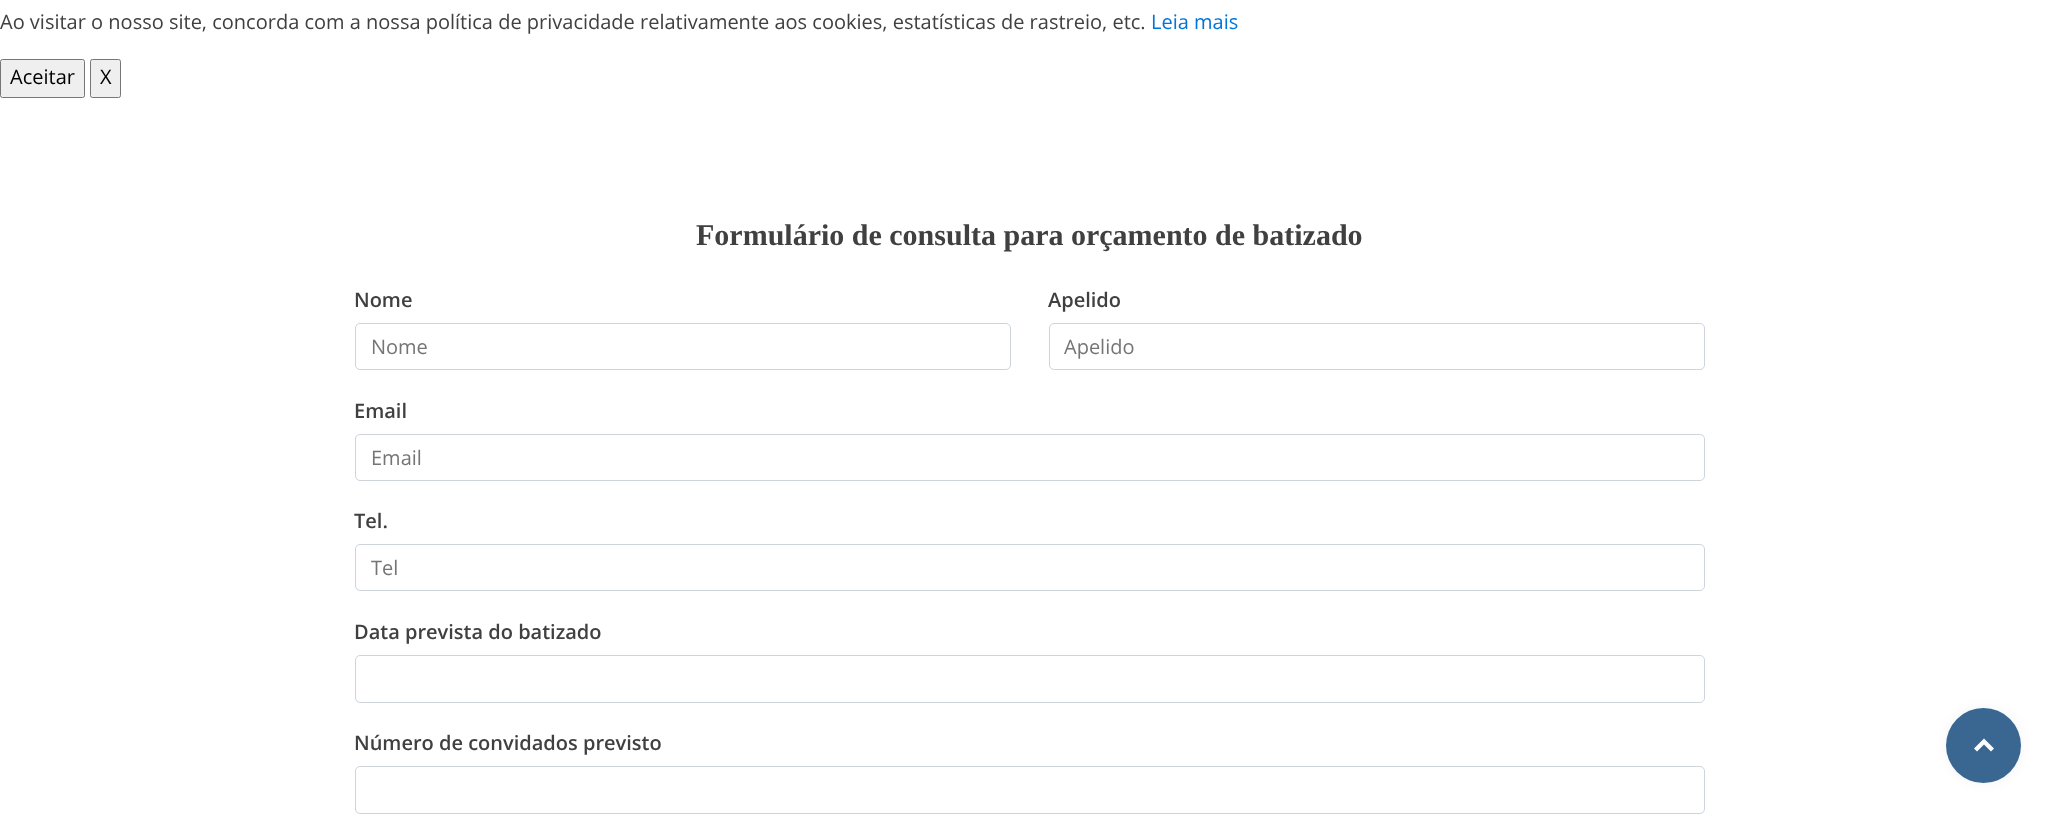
async function draw(canvas) {
	canvas.width = 2058;
	canvas.height = 819;
	const c = canvas.getContext('2d');
	c.miterLimit = 4;
	c.fontKerning = 'normal';

	c.fillStyle = '#fff';
	c.fillRect(0, 0, 2058, 819);
	c.font = '20px Open Sans';
	c.fillStyle = '#404040';
	c.fillText('Ao visitar o nosso site, concorda com a nossa política de privacidade relativamente aos cookies, estatísticas de rastreio, etc.', 0, 29);
	c.fillStyle = '#0074db';
	c.fillText('Leia mais', 1151, 29);
	c.fillStyle = '#efefef';
	c.beginPath();
	c.roundRect(0.5, 59.5, 84, 38, 2);
	c.fill();
	c.strokeStyle = '#767676';
	c.stroke();
	c.fillStyle = '#000';
	c.fillText('Aceitar', 10, 84);
	c.fillStyle = '#efefef';
	c.beginPath();
	c.roundRect(90.5, 59.5, 30, 38, 2);
	c.fill();
	c.stroke();
	c.fillStyle = '#000';
	c.fillText('X', 100, 84);
	c.font = 'bold 30px Liberation Serif';
	c.fillStyle = '#404040';
	c.fillText('Formulário de consulta para orçamento de batizado', 696, 245);
	c.font = '600 20px Open Sans';
	c.fillText('Nome', 354, 307);
	c.beginPath();
	c.roundRect(355.5, 323.5, 655, 46, 4.5);
	c.strokeStyle = '#ced4da';
	c.stroke();
	c.font = '20px Open Sans';
	c.fillStyle = '#757575';
	c.fillText('Nome', 371, 354);
	c.font = '600 20px Open Sans';
	c.fillStyle = '#404040';
	c.fillText('Apelido', 1048, 307);
	c.beginPath();
	c.roundRect(1049.5, 323.5, 655, 46, 4.5);
	c.stroke();
	c.font = '20px Open Sans';
	c.fillStyle = '#757575';
	c.fillText('Apelido', 1064, 354);
	c.font = '600 20px Open Sans';
	c.fillStyle = '#404040';
	c.fillText('Email', 354, 418);
	c.beginPath();
	c.roundRect(355.5, 434.5, 1349, 46, 4.5);
	c.stroke();
	c.font = '20px Open Sans';
	c.fillStyle = '#757575';
	c.fillText('Email', 371, 465);
	c.font = '600 20px Open Sans';
	c.fillStyle = '#404040';
	c.fillText('Tel.', 354, 528);
	c.beginPath();
	c.roundRect(355.5, 544.5, 1349, 46, 4.5);
	c.stroke();
	c.font = '20px Open Sans';
	c.fillStyle = '#757575';
	c.fillText('Tel', 371, 575);
	c.font = '600 20px Open Sans';
	c.fillStyle = '#404040';
	c.fillText('Data prevista do batizado', 354, 639);
	c.beginPath();
	c.roundRect(355.5, 655.5, 1349, 47, 4.5);
	c.stroke();
	c.fillText('Número de convidados previsto', 354, 750);
	c.beginPath();
	c.roundRect(355.5, 766.5, 1349, 47, 4.5);
	c.stroke();
	c.fillStyle = '#0000000d';
	c.filter = 'blur(6px)';
	c.beginPath();
	c.roundRect(1946, 708, 75, 75, 37.5);
	c.fill();
	c.filter = 'none';
	c.fillStyle = '#3a6791';
	c.beginPath();
	c.arc(1983.5, 745.5, 37.5, 0, 2 * Math.PI);
	c.fill();
	c.fillStyle = '#fff';
	c.beginPath();
	c.moveTo(1984, 738.5);
	c.lineTo(1994, 748.5);
	c.lineTo(1991, 751.5);
	c.lineTo(1984, 744.5);
	c.lineTo(1977, 751.5);
	c.lineTo(1974, 748.5);
	c.closePath();
	c.fill();
}

draw(document.querySelector('canvas'));
